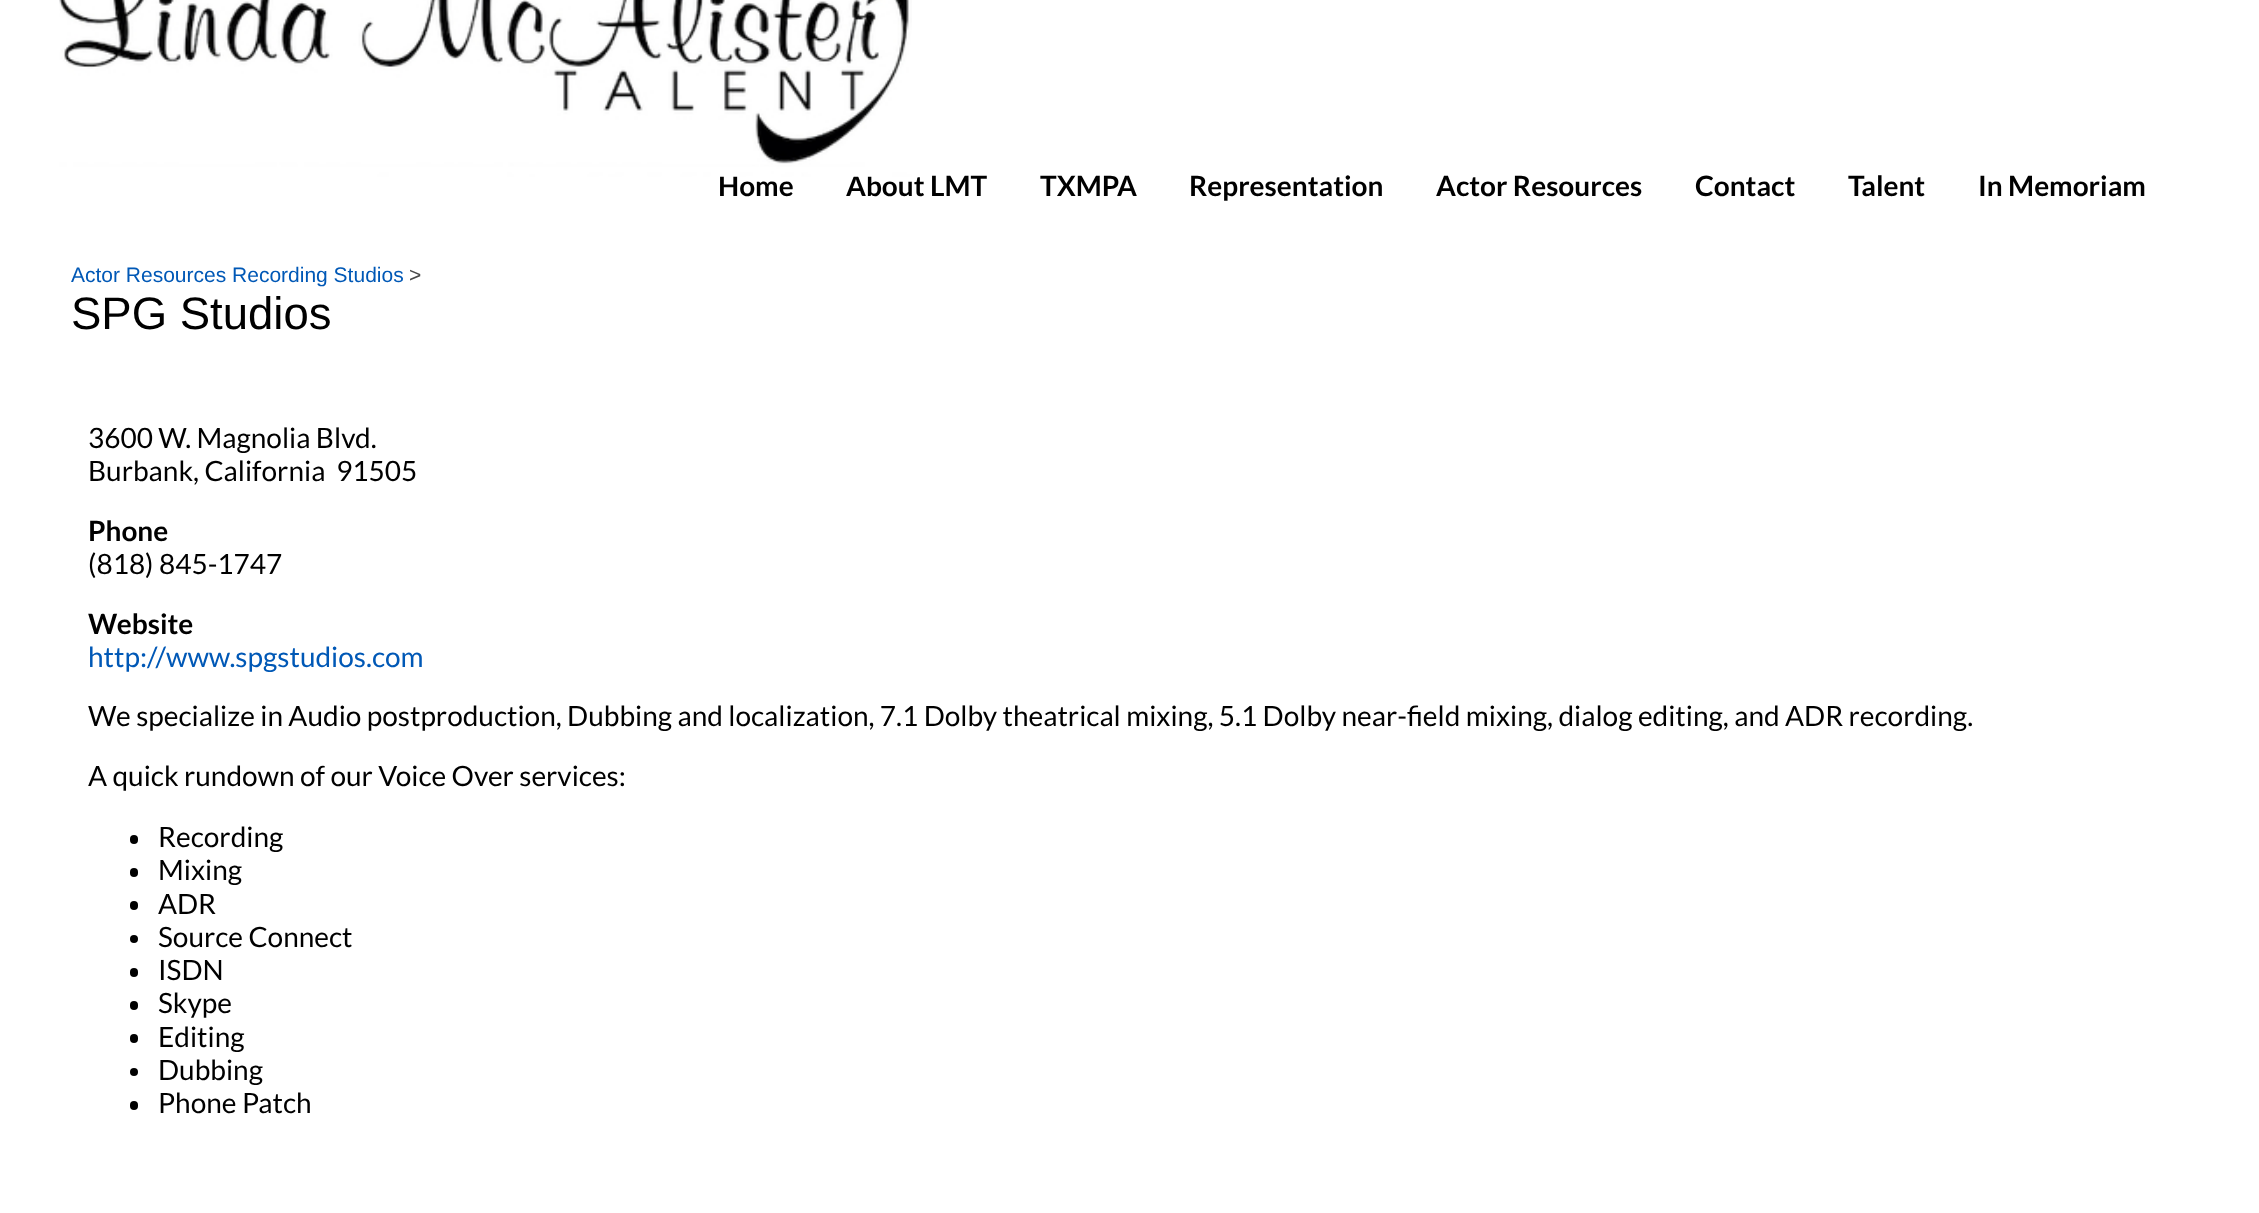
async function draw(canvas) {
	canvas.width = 2259;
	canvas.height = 1213;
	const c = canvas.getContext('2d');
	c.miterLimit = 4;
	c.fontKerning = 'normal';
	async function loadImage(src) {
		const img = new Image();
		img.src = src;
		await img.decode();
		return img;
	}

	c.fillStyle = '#fff';
	c.fillRect(0, 0, 2259, 1213);
	c.font = 'bold 28px Lato';
	c.fillStyle = '#000';
	c.fillText('Home', 718, 196);
	c.fillText('About LMT', 846, 196);
	c.drawImage(await loadImage('img1.png'), 59, 0, 853, 177);
	for (const [text, x, y] of [
		['TXMPA', 1040, 196],
		['Representation', 1189, 196],
		['Actor Resources', 1436, 196],
		['Contact', 1695, 196],
		['Talent', 1848, 196],
		['In Memoriam', 1978, 196],
	]) {
		c.fillText(text, x, y);
	}
	c.font = '21px Liberation Sans';
	c.fillStyle = '#0058b6';
	c.fillText('Actor Resources Recording Studios', 71, 282);
	c.fillStyle = '#494949';
	c.fillText('>', 409, 282);
	c.font = '45.5px Liberation Sans';
	c.fillStyle = '#000';
	c.fillText('SPG Studios', 71, 329);
	c.font = '28px Lato';
	c.fillText('3600 W. Magnolia Blvd.', 88, 448);
	c.fillText('Burbank, California  91505', 88, 481);
	c.font = 'bold 28px Lato';
	c.fillText('Phone', 88, 541);
	c.font = '28px Lato';
	c.fillText('(818) 845-1747', 88, 574);
	c.font = 'bold 28px Lato';
	c.fillText('Website', 88, 634);
	c.font = '28px Lato';
	c.fillStyle = '#0058b6';
	c.fillText('http://www.spgstudios.com', 88, 667);
	c.fillStyle = '#000';
	c.fillText('We specialize in Audio postproduction, Dubbing and localization, 7.1 Dolby theatrical mixing, 5.1 Dolby near-field mixing, dialog editing, and ADR recording.', 88, 726);
	c.fillText('A quick rundown of our Voice Over services:', 88, 786);
	c.beginPath();
	c.roundRect(130, 835, 8, 9, 4);
	c.fill();
	c.fillText('Recording', 158, 847);
	c.beginPath();
	c.roundRect(130, 868, 8, 9, 4);
	c.fill();
	c.fillText('Mixing', 158, 880);
	c.beginPath();
	c.roundRect(130, 901, 8, 9, 4);
	c.fill();
	c.fillText('ADR', 158, 914);
	c.beginPath();
	c.arc(134, 939, 4, 0, 2 * Math.PI);
	c.fill();
	c.fillText('Source Connect', 158, 947);
	c.beginPath();
	c.roundRect(130, 968, 8, 9, 4);
	c.fill();
	c.fillText('ISDN', 158, 980);
	c.beginPath();
	c.roundRect(130, 1001, 8, 9, 4);
	c.fill();
	c.fillText('Skype', 158, 1013);
	c.beginPath();
	c.roundRect(130, 1034, 8, 9, 4);
	c.fill();
	c.fillText('Editing', 158, 1047);
	c.beginPath();
	c.arc(134, 1072, 4, 0, 2 * Math.PI);
	c.fill();
	c.fillText('Dubbing', 158, 1080);
	c.beginPath();
	c.roundRect(130, 1101, 8, 9, 4);
	c.fill();
	c.fillText('Phone Patch', 158, 1113);
}

draw(document.querySelector('canvas'));
